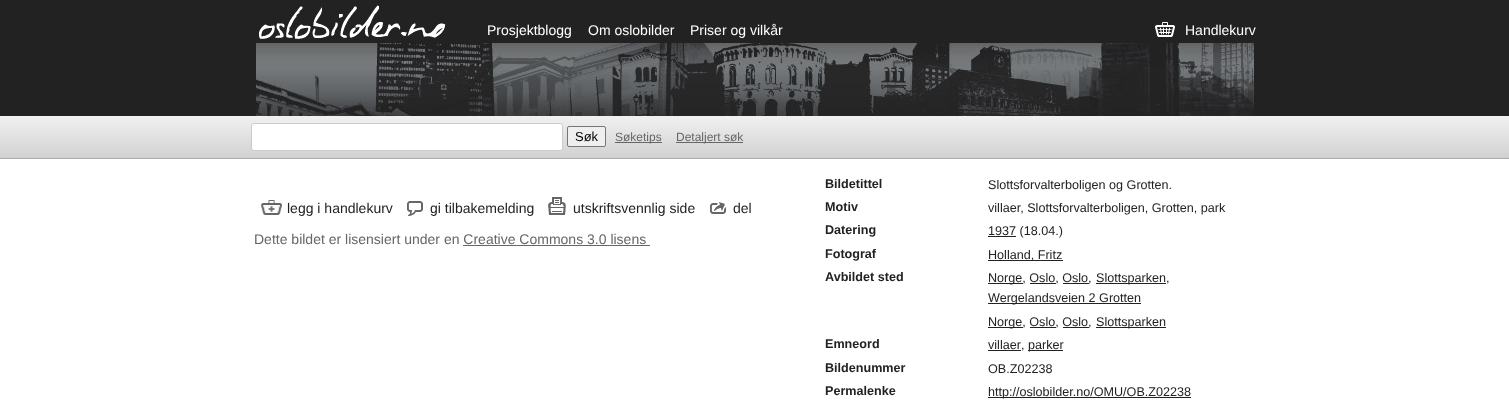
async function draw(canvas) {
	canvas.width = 1509;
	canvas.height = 408;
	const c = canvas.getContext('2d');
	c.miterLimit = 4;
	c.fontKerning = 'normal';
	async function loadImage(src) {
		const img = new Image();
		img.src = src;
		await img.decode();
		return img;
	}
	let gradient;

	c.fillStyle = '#fff';
	c.fillRect(0, 0, 1509, 408);
	c.fillStyle = '#222';
	c.fillRect(0, 0, 1509, 116);
	c.drawImage(await loadImage('img1.png'), 256, 43, 998, 73);
	c.drawImage(await loadImage('img2.png'), 259, 5, 187, 34);
	c.font = '14px Liberation Sans';
	c.fillStyle = '#fff';
	for (const [text, x, y] of [
		['Prosjektblogg', 487, 35],
		['Om oslobilder', 588, 35],
		['Priser og vilkår', 690, 35],
	]) {
		c.fillText(text, x, y);
	}
	c.drawImage(await loadImage('img3.png'), 1155, 22, 20, 15);
	c.fillText('Handlekurv', 1185, 35);
	gradient = c.createLinearGradient(755, 116, 755, 158);
	gradient.addColorStop(0, '#f1f1f1');
	gradient.addColorStop(1, '#d1d1d1');
	c.fillStyle = gradient;
	c.fillRect(0, 116, 1509, 42);
	c.fillStyle = '#aaa';
	c.fillRect(0, 158, 1509, 1);
	c.fillStyle = '#fff';
	c.beginPath();
	c.roundRect(251.5, 123.5, 311, 27, 2.5);
	c.fill();
	c.strokeStyle = '#ccc';
	c.stroke();
	c.fillStyle = '#efefef';
	c.beginPath();
	c.roundRect(567.5, 126.5, 38, 20, 1.5);
	c.fill();
	c.strokeStyle = '#767676';
	c.stroke();
	c.font = '13px Liberation Sans';
	c.fillStyle = '#000';
	c.fillText('Søk', 575, 141);
	c.fillStyle = '#666';
	c.fillRect(615, 142, 47, 1);
	c.font = '12px Liberation Sans';
	c.fillText('Søketips', 615, 141);
	c.fillRect(676, 142, 67, 1);
	c.fillText('Detaljert søk', 676, 141);
	c.drawImage(await loadImage('img4.png'), 261, 200, 21, 15);
	c.font = '14px Liberation Sans';
	c.fillStyle = '#222';
	c.fillText('legg i handlekurv', 287, 213);
	c.drawImage(await loadImage('img5.png'), 407, 201, 16, 15);
	c.fillText('gi tilbakemelding', 430, 213);
	c.drawImage(await loadImage('img6.png'), 548, 197, 18, 18);
	c.fillText('utskriftsvennlig side', 573, 213);
	c.drawImage(await loadImage('img7.png'), 710, 202, 16, 12);
	c.fillText('del', 733, 213);
	c.fillStyle = '#666';
	c.fillText('Dette bildet er lisensiert under en Creative Commons 3.0 lisens', 254, 244);
	c.fillRect(463, 245, 187, 1);
	c.font = 'bold 12.6px Liberation Sans';
	c.fillStyle = '#222';
	c.fillText('Bildetittel', 825, 188);
	c.font = '12.6px Liberation Sans';
	c.fillText('Slottsforvalterboligen og Grotten.', 988, 189);
	c.font = 'bold 12.6px Liberation Sans';
	c.fillText('Motiv', 825, 211);
	c.font = '12.6px Liberation Sans';
	c.fillText('villaer, Slottsforvalterboligen, Grotten, park', 988, 212);
	c.font = 'bold 12.6px Liberation Sans';
	c.fillText('Datering', 825, 234);
	c.fillRect(988, 236, 28, 1);
	c.font = '12.6px Liberation Sans';
	c.fillText('1937 (18.04.)', 988, 235);
	c.font = 'bold 12.6px Liberation Sans';
	c.fillText('Fotograf', 825, 258);
	c.fillRect(988, 260, 75, 1);
	c.font = '12.6px Liberation Sans';
	c.fillText('Holland, Fritz', 988, 259);
	c.font = 'bold 12.6px Liberation Sans';
	c.fillText('Avbildet sted', 825, 281);
	c.fillRect(988, 283, 35, 1);
	c.font = '12.6px Liberation Sans';
	c.fillText('Norge, Oslo, Oslo,', 988, 282);
	c.fillRect(1096, 283, 70, 1);
	c.fillText('Slottsparken,', 1096, 282);
	for (const [x, y, w, h, color] of [
		[1030, 283, 26, 1, '#222'],
		[1063, 283, 26, 1, '#222'],
		[988, 303, 153, 1, '#222'],
	]) {
		c.fillStyle = color;
		c.fillRect(x, y, w, h);
	}
	c.fillText('Wergelandsveien 2 Grotten', 988, 302);
	c.fillRect(988, 327, 35, 1);
	c.fillText('Norge, Oslo, Oslo,', 988, 326);
	c.fillRect(1096, 327, 70, 1);
	c.fillText('Slottsparken', 1096, 326);
	c.fillRect(1030, 327, 26, 1);
	c.fillRect(1063, 327, 26, 1);
	c.font = 'bold 12.6px Liberation Sans';
	c.fillText('Emneord', 825, 348);
	c.font = '12.6px Liberation Sans';
	c.fillText('villaer', 988, 349);
	c.fillRect(988, 350, 33, 1);
	c.fillRect(1028, 350, 35, 1);
	c.fillText('parker', 1028, 349);
	c.fillText(',', 1021, 349);
	c.font = 'bold 12.6px Liberation Sans';
	c.fillText('Bildenummer', 825, 372);
	c.font = '12.6px Liberation Sans';
	c.fillText('OB.Z02238', 988, 373);
	c.font = 'bold 12.6px Liberation Sans';
	c.fillText('Permalenke', 825, 395);
	c.fillRect(988, 397, 203, 1);
	c.font = '12.6px Liberation Sans';
	c.fillText('http://oslobilder.no/OMU/OB.Z02238', 988, 396);
}

draw(document.querySelector('canvas'));
